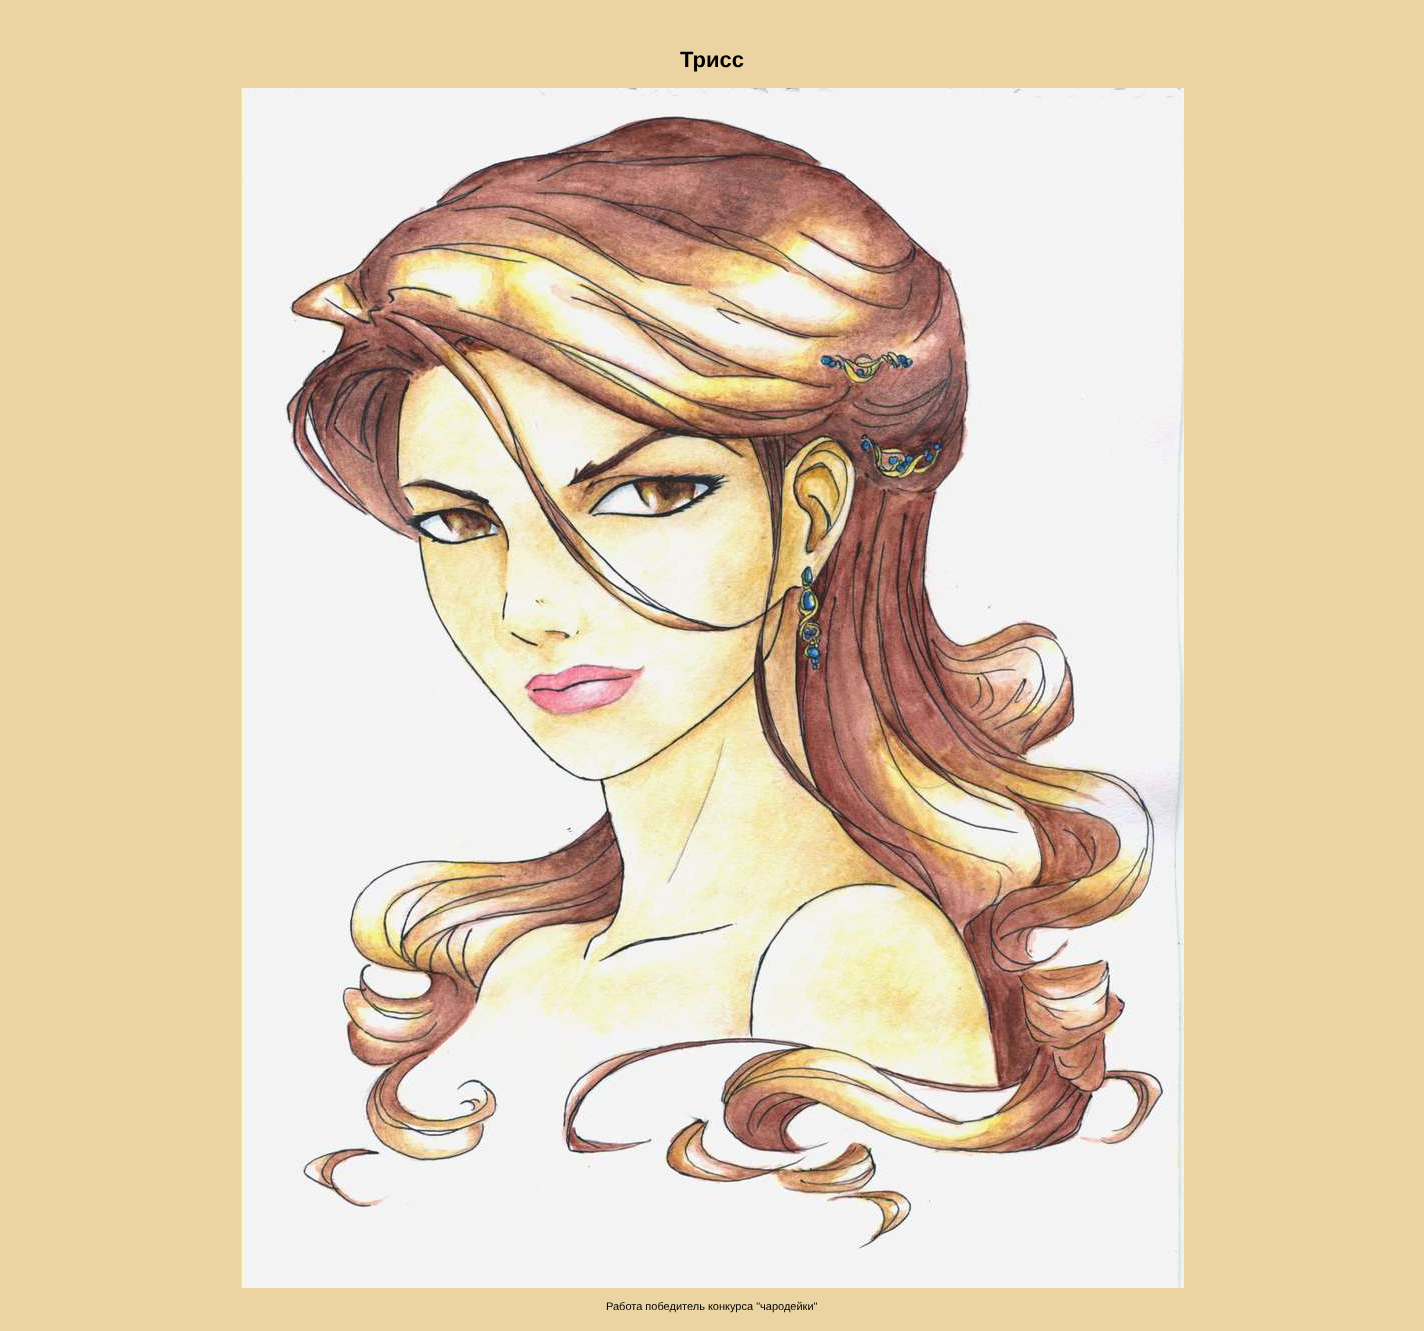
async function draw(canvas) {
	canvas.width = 1424;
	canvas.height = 1331;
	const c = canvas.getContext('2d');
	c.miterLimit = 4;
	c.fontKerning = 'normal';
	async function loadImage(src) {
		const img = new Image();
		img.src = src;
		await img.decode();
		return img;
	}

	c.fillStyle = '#ebd4a1';
	c.fillRect(0, 0, 1424, 1331);
	c.font = 'bold 22px Liberation Sans';
	c.fillStyle = '#000';
	c.fillText('Трисс', 680, 67);
	c.drawImage(await loadImage('img1.png'), 241, 88, 943, 1200);
	c.font = '11px Liberation Sans';
	c.fillText('Работа победитель конкурса "чародейки"', 606, 1310);
}

draw(document.querySelector('canvas'));
